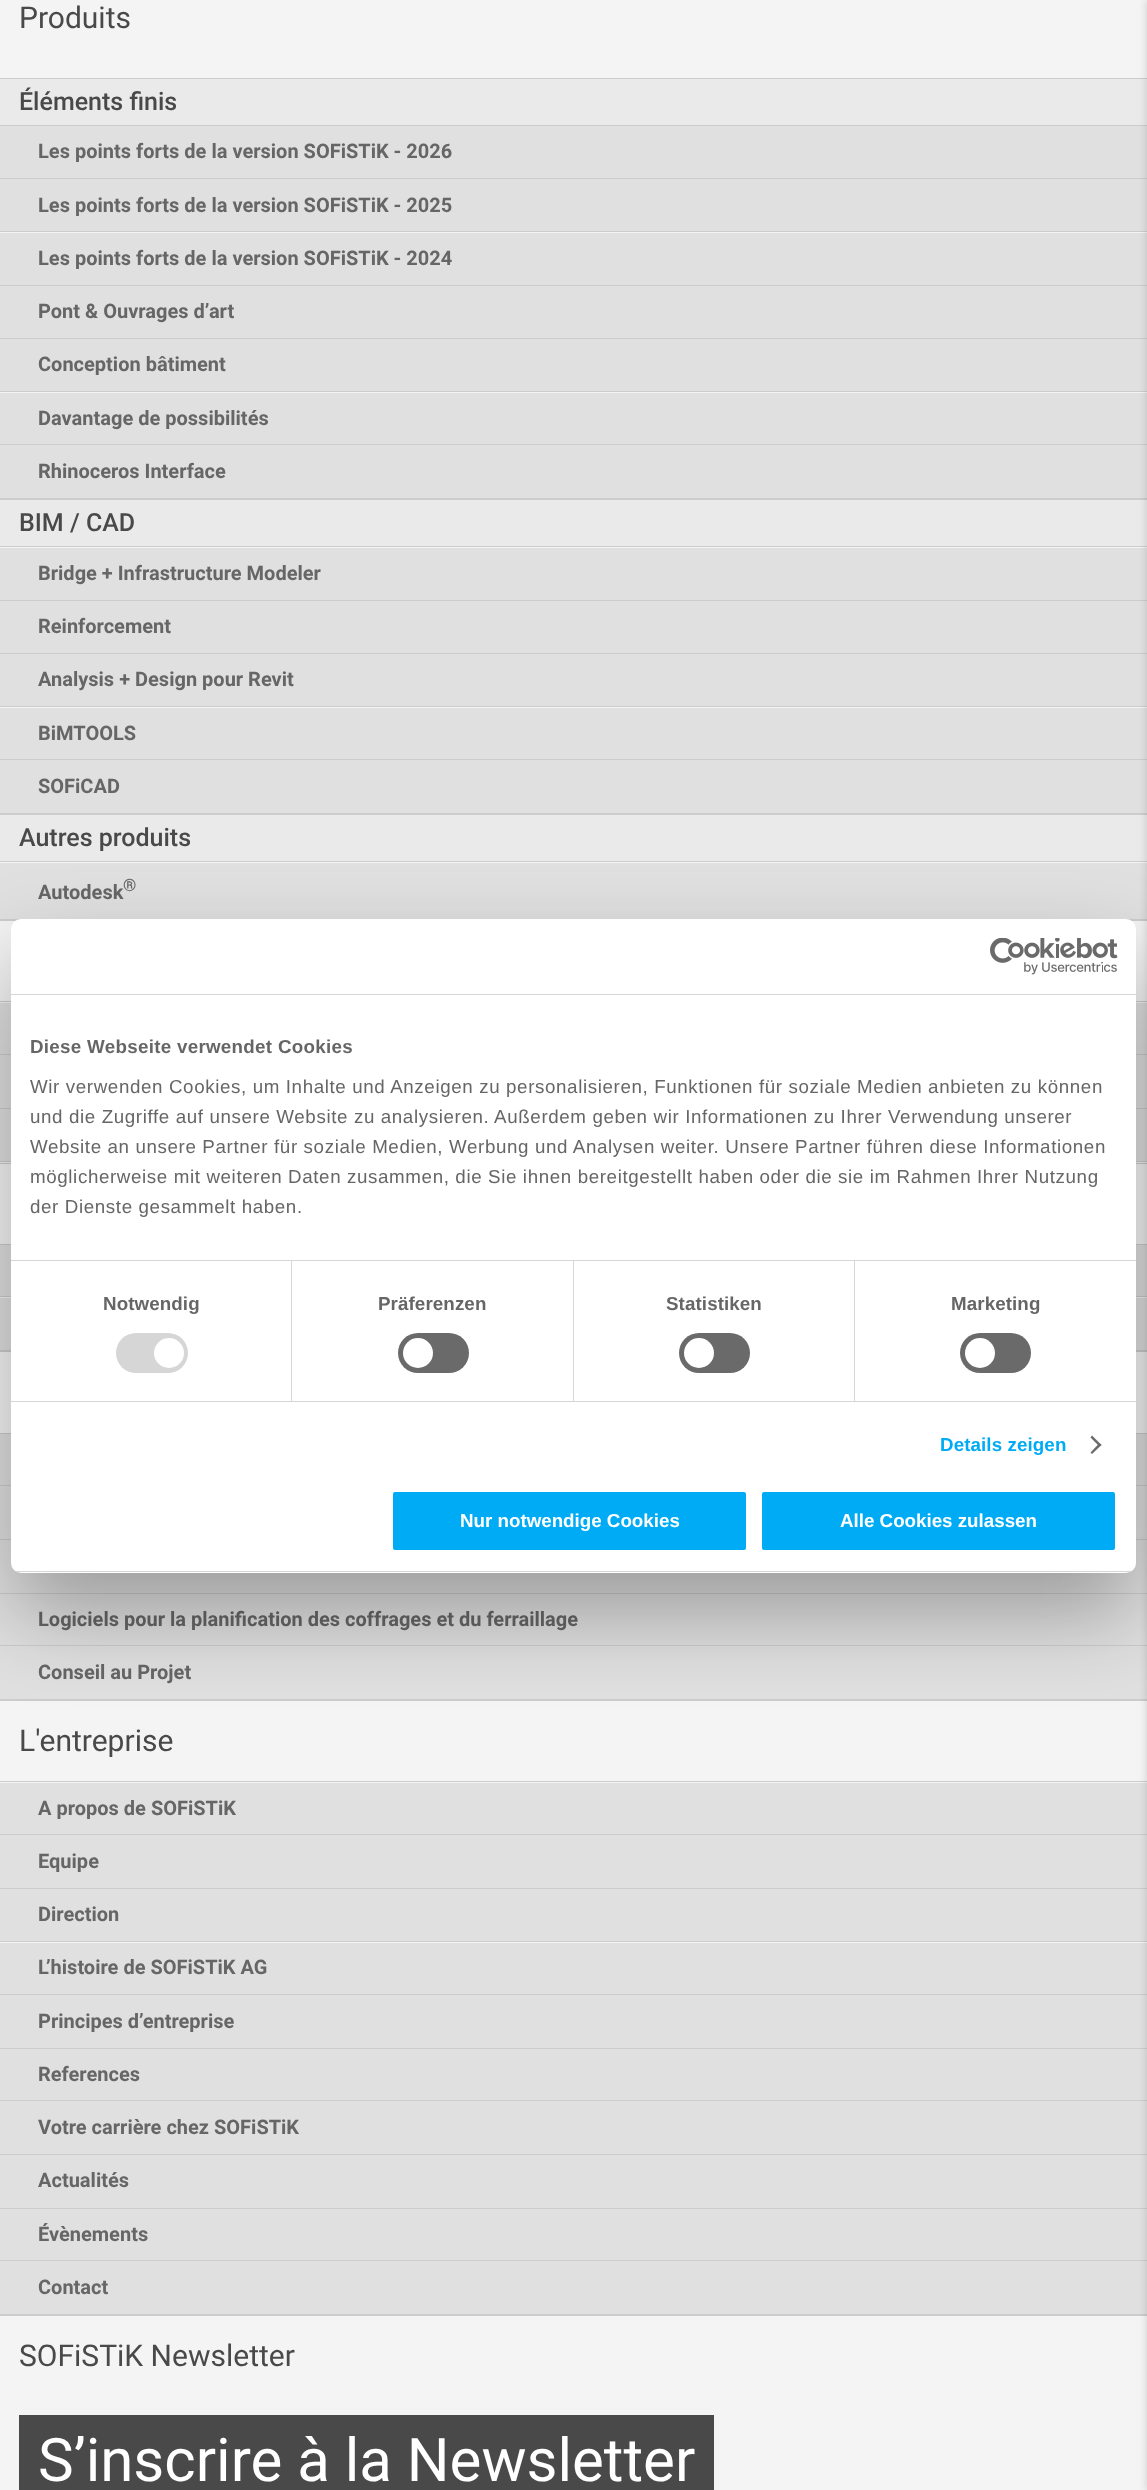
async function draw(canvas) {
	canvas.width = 1147;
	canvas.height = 2490;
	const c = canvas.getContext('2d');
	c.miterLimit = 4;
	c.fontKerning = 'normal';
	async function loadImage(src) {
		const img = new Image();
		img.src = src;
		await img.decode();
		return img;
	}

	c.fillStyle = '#f4f4f4';
	c.fillRect(0, 0, 1147, 2490);
	c.font = '30px Roboto';
	c.fillStyle = '#494949';
	c.fillText('Produits', 19, 28);
	c.fillStyle = '#eaeaea';
	c.fillRect(0, 79, 1147, 46);
	c.fillStyle = '#ccc';
	c.fillRect(0, 78, 1147, 1);
	c.font = '500 25px Roboto';
	c.fillStyle = '#494949';
	c.fillText('Éléments finis', 19, 110);
	for (const [x, y, w, h, color] of [
		[0, 125, 1147, 1, '#ccc'],
		[0, 178, 1147, 1, '#ccc'],
		[0, 126, 1147, 52, '#e0e0e0'],
	]) {
		c.fillStyle = color;
		c.fillRect(x, y, w, h);
	}
	c.font = 'bold 20px Roboto';
	c.fillStyle = '#666';
	c.fillText('Les points forts de la version SOFiSTiK - 2026', 38, 158);
	c.fillStyle = '#ccc';
	c.fillRect(0, 231, 1147, 1);
	c.fillStyle = '#e0e0e0';
	c.fillRect(0, 179, 1147, 52);
	c.fillStyle = '#666';
	c.fillText('Les points forts de la version SOFiSTiK - 2025', 38, 212);
	c.fillStyle = '#ccc';
	c.fillRect(0, 285, 1147, 1);
	c.fillStyle = '#e0e0e0';
	c.fillRect(0, 233, 1147, 52);
	c.fillStyle = '#666';
	c.fillText('Les points forts de la version SOFiSTiK - 2024', 38, 265);
	c.fillStyle = '#ccc';
	c.fillRect(0, 338, 1147, 1);
	c.fillStyle = '#e0e0e0';
	c.fillRect(0, 286, 1147, 52);
	c.fillStyle = '#666';
	c.fillText('Pont & Ouvrages d’art', 38, 318);
	c.fillStyle = '#ccc';
	c.fillRect(0, 391, 1147, 1);
	c.fillStyle = '#e0e0e0';
	c.fillRect(0, 339, 1147, 52);
	c.fillStyle = '#666';
	c.fillText('Conception bâtiment', 38, 371);
	c.fillStyle = '#ccc';
	c.fillRect(0, 444, 1147, 1);
	c.fillStyle = '#e0e0e0';
	c.fillRect(0, 393, 1147, 51);
	c.fillStyle = '#666';
	c.fillText('Davantage de possibilités', 38, 425);
	c.fillStyle = '#ccc';
	c.fillRect(0, 498, 1147, 2);
	c.fillStyle = '#e0e0e0';
	c.fillRect(0, 445, 1147, 53);
	c.fillStyle = '#666';
	c.fillText('Rhinoceros Interface', 38, 478);
	c.fillStyle = '#eaeaea';
	c.fillRect(0, 500, 1147, 46);
	c.font = '500 25px Roboto';
	c.fillStyle = '#494949';
	c.fillText('BIM / CAD', 19, 531);
	for (const [x, y, w, h, color] of [
		[0, 546, 1147, 1, '#ccc'],
		[0, 600, 1147, 1, '#ccc'],
		[0, 548, 1147, 52, '#e0e0e0'],
	]) {
		c.fillStyle = color;
		c.fillRect(x, y, w, h);
	}
	c.font = 'bold 20px Roboto';
	c.fillStyle = '#666';
	c.fillText('Bridge + Infrastructure Modeler', 38, 580);
	c.fillStyle = '#ccc';
	c.fillRect(0, 653, 1147, 1);
	c.fillStyle = '#e0e0e0';
	c.fillRect(0, 601, 1147, 52);
	c.fillStyle = '#666';
	c.fillText('Reinforcement', 38, 633);
	c.fillStyle = '#ccc';
	c.fillRect(0, 706, 1147, 1);
	c.fillStyle = '#e0e0e0';
	c.fillRect(0, 654, 1147, 52);
	c.fillStyle = '#666';
	c.fillText('Analysis + Design pour Revit', 38, 686);
	c.fillStyle = '#ccc';
	c.fillRect(0, 759, 1147, 1);
	c.fillStyle = '#e0e0e0';
	c.fillRect(0, 708, 1147, 51);
	c.fillStyle = '#666';
	c.fillText('BiMTOOLS', 38, 740);
	c.fillStyle = '#ccc';
	c.fillRect(0, 813, 1147, 2);
	c.fillStyle = '#e0e0e0';
	c.fillRect(0, 760, 1147, 53);
	c.fillStyle = '#666';
	c.fillText('SOFiCAD', 38, 793);
	c.fillStyle = '#eaeaea';
	c.fillRect(0, 815, 1147, 46);
	c.font = '500 25px Roboto';
	c.fillStyle = '#494949';
	c.fillText('Autres produits', 19, 846);
	for (const [x, y, w, h, color] of [
		[0, 861, 1147, 1, '#ccc'],
		[0, 919, 1147, 2, '#ccc'],
		[0, 863, 1147, 56, '#e0e0e0'],
	]) {
		c.fillStyle = color;
		c.fillRect(x, y, w, h);
	}
	c.font = 'bold 20px Roboto';
	c.fillStyle = '#666';
	c.fillText('Autodesk', 38, 899);
	c.font = 'bold 17px Roboto';
	c.fillText('®', 123, 891);
	for (const [x, y, w, h, color] of [
		[0, 1001, 1147, 1, '#ccc'],
		[0, 1054, 1147, 1, '#ccc'],
		[0, 1003, 1147, 51, '#e0e0e0'],
		[0, 1108, 1147, 1, '#ccc'],
		[0, 1055, 1147, 53, '#e0e0e0'],
		[0, 1161, 1147, 1, '#ccc'],
		[0, 1109, 1147, 52, '#e0e0e0'],
		[0, 1163, 1147, 1, '#ccc'],
		[0, 1244, 1147, 1, '#ccc'],
		[0, 1296, 1147, 1, '#ccc'],
		[0, 1245, 1147, 51, '#e0e0e0'],
		[0, 1350, 1147, 2, '#ccc'],
		[0, 1298, 1147, 52, '#e0e0e0'],
		[0, 1433, 1147, 1, '#ccc'],
		[0, 1485, 1147, 1, '#ccc'],
		[0, 1434, 1147, 51, '#e0e0e0'],
		[0, 1539, 1147, 1, '#ccc'],
		[0, 1486, 1147, 53, '#e0e0e0'],
		[0, 1593, 1147, 1, '#ccc'],
		[0, 1540, 1147, 53, '#e0e0e0'],
		[0, 1645, 1147, 1, '#ccc'],
		[0, 1594, 1147, 51, '#e0e0e0'],
	]) {
		c.fillStyle = color;
		c.fillRect(x, y, w, h);
	}
	c.font = 'bold 20px Roboto';
	c.fillStyle = '#666';
	c.fillText('Logiciels pour la planification des coffrages et du ferraillage', 38, 1626);
	c.fillStyle = '#ccc';
	c.fillRect(0, 1699, 1147, 2);
	c.fillStyle = '#e0e0e0';
	c.fillRect(0, 1646, 1147, 53);
	c.fillStyle = '#666';
	c.fillText('Conseil au Projet', 38, 1679);
	c.font = '30px Roboto';
	c.fillStyle = '#494949';
	c.fillText('L\'entreprise', 19, 1751);
	for (const [x, y, w, h, color] of [
		[0, 1781, 1147, 1, '#ccc'],
		[0, 1834, 1147, 1, '#ccc'],
		[0, 1783, 1147, 51, '#e0e0e0'],
	]) {
		c.fillStyle = color;
		c.fillRect(x, y, w, h);
	}
	c.font = 'bold 20px Roboto';
	c.fillStyle = '#666';
	c.fillText('A propos de SOFiSTiK', 38, 1815);
	c.fillStyle = '#ccc';
	c.fillRect(0, 1888, 1147, 1);
	c.fillStyle = '#e0e0e0';
	c.fillRect(0, 1835, 1147, 53);
	c.fillStyle = '#666';
	c.fillText('Equipe', 38, 1868);
	c.fillStyle = '#ccc';
	c.fillRect(0, 1941, 1147, 1);
	c.fillStyle = '#e0e0e0';
	c.fillRect(0, 1889, 1147, 52);
	c.fillStyle = '#666';
	c.fillText('Direction', 38, 1921);
	c.fillStyle = '#ccc';
	c.fillRect(0, 1994, 1147, 1);
	c.fillStyle = '#e0e0e0';
	c.fillRect(0, 1943, 1147, 51);
	c.fillStyle = '#666';
	c.fillText('L’histoire de SOFiSTiK AG', 38, 1974);
	c.fillStyle = '#ccc';
	c.fillRect(0, 2048, 1147, 1);
	c.fillStyle = '#e0e0e0';
	c.fillRect(0, 1995, 1147, 53);
	c.fillStyle = '#666';
	c.fillText('Principes d’entreprise', 38, 2028);
	c.fillStyle = '#ccc';
	c.fillRect(0, 2100, 1147, 1);
	c.fillStyle = '#e0e0e0';
	c.fillRect(0, 2049, 1147, 51);
	c.fillStyle = '#666';
	c.fillText('References', 38, 2081);
	c.fillStyle = '#ccc';
	c.fillRect(0, 2154, 1147, 1);
	c.fillStyle = '#e0e0e0';
	c.fillRect(0, 2101, 1147, 53);
	c.fillStyle = '#666';
	c.fillText('Votre carrière chez SOFiSTiK', 38, 2134);
	c.fillStyle = '#ccc';
	c.fillRect(0, 2208, 1147, 1);
	c.fillStyle = '#e0e0e0';
	c.fillRect(0, 2155, 1147, 53);
	c.fillStyle = '#666';
	c.fillText('Actualités', 38, 2187);
	c.fillStyle = '#ccc';
	c.fillRect(0, 2260, 1147, 1);
	c.fillStyle = '#e0e0e0';
	c.fillRect(0, 2209, 1147, 51);
	c.fillStyle = '#666';
	c.fillText('Évènements', 38, 2241);
	c.fillStyle = '#ccc';
	c.fillRect(0, 2314, 1147, 2);
	c.fillStyle = '#e0e0e0';
	c.fillRect(0, 2261, 1147, 53);
	c.fillStyle = '#666';
	c.fillText('Contact', 38, 2294);
	c.font = '30px Roboto';
	c.fillStyle = '#494949';
	c.fillText('SOFiSTiK Newsletter', 19, 2366);
	c.fillRect(19, 2415, 695, 75);
	c.font = '60px Roboto';
	c.fillStyle = '#fff';
	c.fillText('S’inscrire à la Newsletter', 38, 2481);
	c.fillStyle = '#0000001a';
	c.filter = 'blur(3px)';
	c.beginPath();
	c.rect(1145, 0, 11, 2490);
	c.fill();
	c.filter = 'none';
	c.fillStyle = '#0000004d';
	c.filter = 'blur(42.5px)';
	c.beginPath();
	c.roundRect(11, 959, 1125, 654, 10);
	c.fill();
	c.filter = 'none';
	c.fillStyle = '#fff';
	c.beginPath();
	c.roundRect(11, 919, 1125, 654, 10);
	c.fill();
	c.fillStyle = '#d6d6d6';
	c.fillRect(11, 994, 1125, 1);
	c.drawImage(await loadImage('img1.png'), 990, 938, 128, 37);
	c.fillRect(11, 1260, 1125, 1);
	c.letterSpacing = '0.3px';
	c.font = 'bold 18.75px Liberation Sans';
	c.fillStyle = '#666';
	c.fillText('Diese Webseite verwendet Cookies', 30, 1053);
	c.letterSpacing = '0.62px';
	c.font = '18.75px Liberation Sans';
	for (const [text, x, y] of [
		['Wir verwenden Cookies, um Inhalte und Anzeigen zu personalisieren, Funktionen für soziale Medien anbieten zu können', 30, 1093],
		['und die Zugriffe auf unsere Website zu analysieren. Außerdem geben wir Informationen zu Ihrer Verwendung unserer', 30, 1123],
		['Website an unsere Partner für soziale Medien, Werbung und Analysen weiter. Unsere Partner führen diese Informationen', 30, 1153],
		['möglicherweise mit weiteren Daten zusammen, die Sie ihnen bereitgestellt haben oder die sie im Rahmen Ihrer Nutzung', 30, 1183],
		['der Dienste gesammelt haben.', 30, 1213],
	]) {
		c.fillText(text, x, y);
	}
	c.fillStyle = '#d6d6d6';
	c.fillRect(11, 1401, 1125, 1);
	c.fillRect(291, 1261, 1, 140);
	c.letterSpacing = '0.1px';
	c.font = 'bold 18.75px Liberation Sans';
	c.fillStyle = '#666';
	c.fillText('Notwendig', 103, 1310);
	c.fillStyle = '#d6d6d6';
	c.beginPath();
	c.roundRect(116, 1333, 72, 40, 20);
	c.fill();
	c.fillStyle = '#fff';
	c.beginPath();
	c.arc(169, 1353, 15, 0, 2 * Math.PI);
	c.fill();
	c.fillStyle = '#d6d6d6';
	c.fillRect(573, 1261, 1, 140);
	c.fillStyle = '#666';
	c.fillText('Präferenzen', 378, 1310);
	c.fillStyle = '#6a6a6a';
	c.beginPath();
	c.roundRect(398, 1333, 71, 40, 20);
	c.fill();
	c.fillStyle = '#fff';
	c.beginPath();
	c.arc(418, 1353, 15, 0, 2 * Math.PI);
	c.fill();
	c.fillStyle = '#d6d6d6';
	c.fillRect(854, 1261, 1, 140);
	c.fillStyle = '#666';
	c.fillText('Statistiken', 666, 1310);
	c.fillStyle = '#6a6a6a';
	c.beginPath();
	c.roundRect(679, 1333, 71, 40, 20);
	c.fill();
	c.fillStyle = '#fff';
	c.beginPath();
	c.arc(699, 1353, 15, 0, 2 * Math.PI);
	c.fill();
	c.fillStyle = '#666';
	c.fillText('Marketing', 951, 1310);
	c.fillStyle = '#6a6a6a';
	c.beginPath();
	c.roundRect(960, 1333, 71, 40, 20);
	c.fill();
	c.fillStyle = '#fff';
	c.beginPath();
	c.arc(980, 1353, 15, 0, 2 * Math.PI);
	c.fill();
	c.fillStyle = '#00abf5';
	c.fillText('Details zeigen', 940, 1451);
	c.fillStyle = '#6a6a6a';
	c.beginPath();
	c.moveTo(1092, 1435.5);
	c.lineTo(1101.5, 1445);
	c.lineTo(1099.5, 1446.5);
	c.lineTo(1090.5, 1437.5);
	c.closePath();
	c.fill();
	c.beginPath();
	c.moveTo(1099.5, 1443);
	c.lineTo(1101.5, 1445);
	c.lineTo(1092, 1454);
	c.lineTo(1090.5, 1452.5);
	c.closePath();
	c.fill();
	c.save();
	c.beginPath();
	c.roundRect(11, 919, 1125, 654, 10);
	c.clip();
	c.fillStyle = '#d6d6d6';
	c.fillRect(11, 1571, 1125, 1);
	c.restore();
	c.fillStyle = '#00abf5';
	c.beginPath();
	c.roundRect(391.5, 1490.5, 356, 61, 3.5);
	c.fill();
	c.strokeStyle = '#fff';
	c.lineWidth = 3;
	c.stroke();
	c.letterSpacing = '0px';
	c.fillStyle = '#fff';
	c.fillText('Nur notwendige Cookies', 460, 1527);
	c.fillStyle = '#00abf5';
	c.beginPath();
	c.roundRect(760.5, 1490.5, 356, 61, 3.5);
	c.fill();
	c.stroke();
	c.fillStyle = '#fff';
	c.fillText('Alle Cookies zulassen', 840, 1527);
}

draw(document.querySelector('canvas'));
